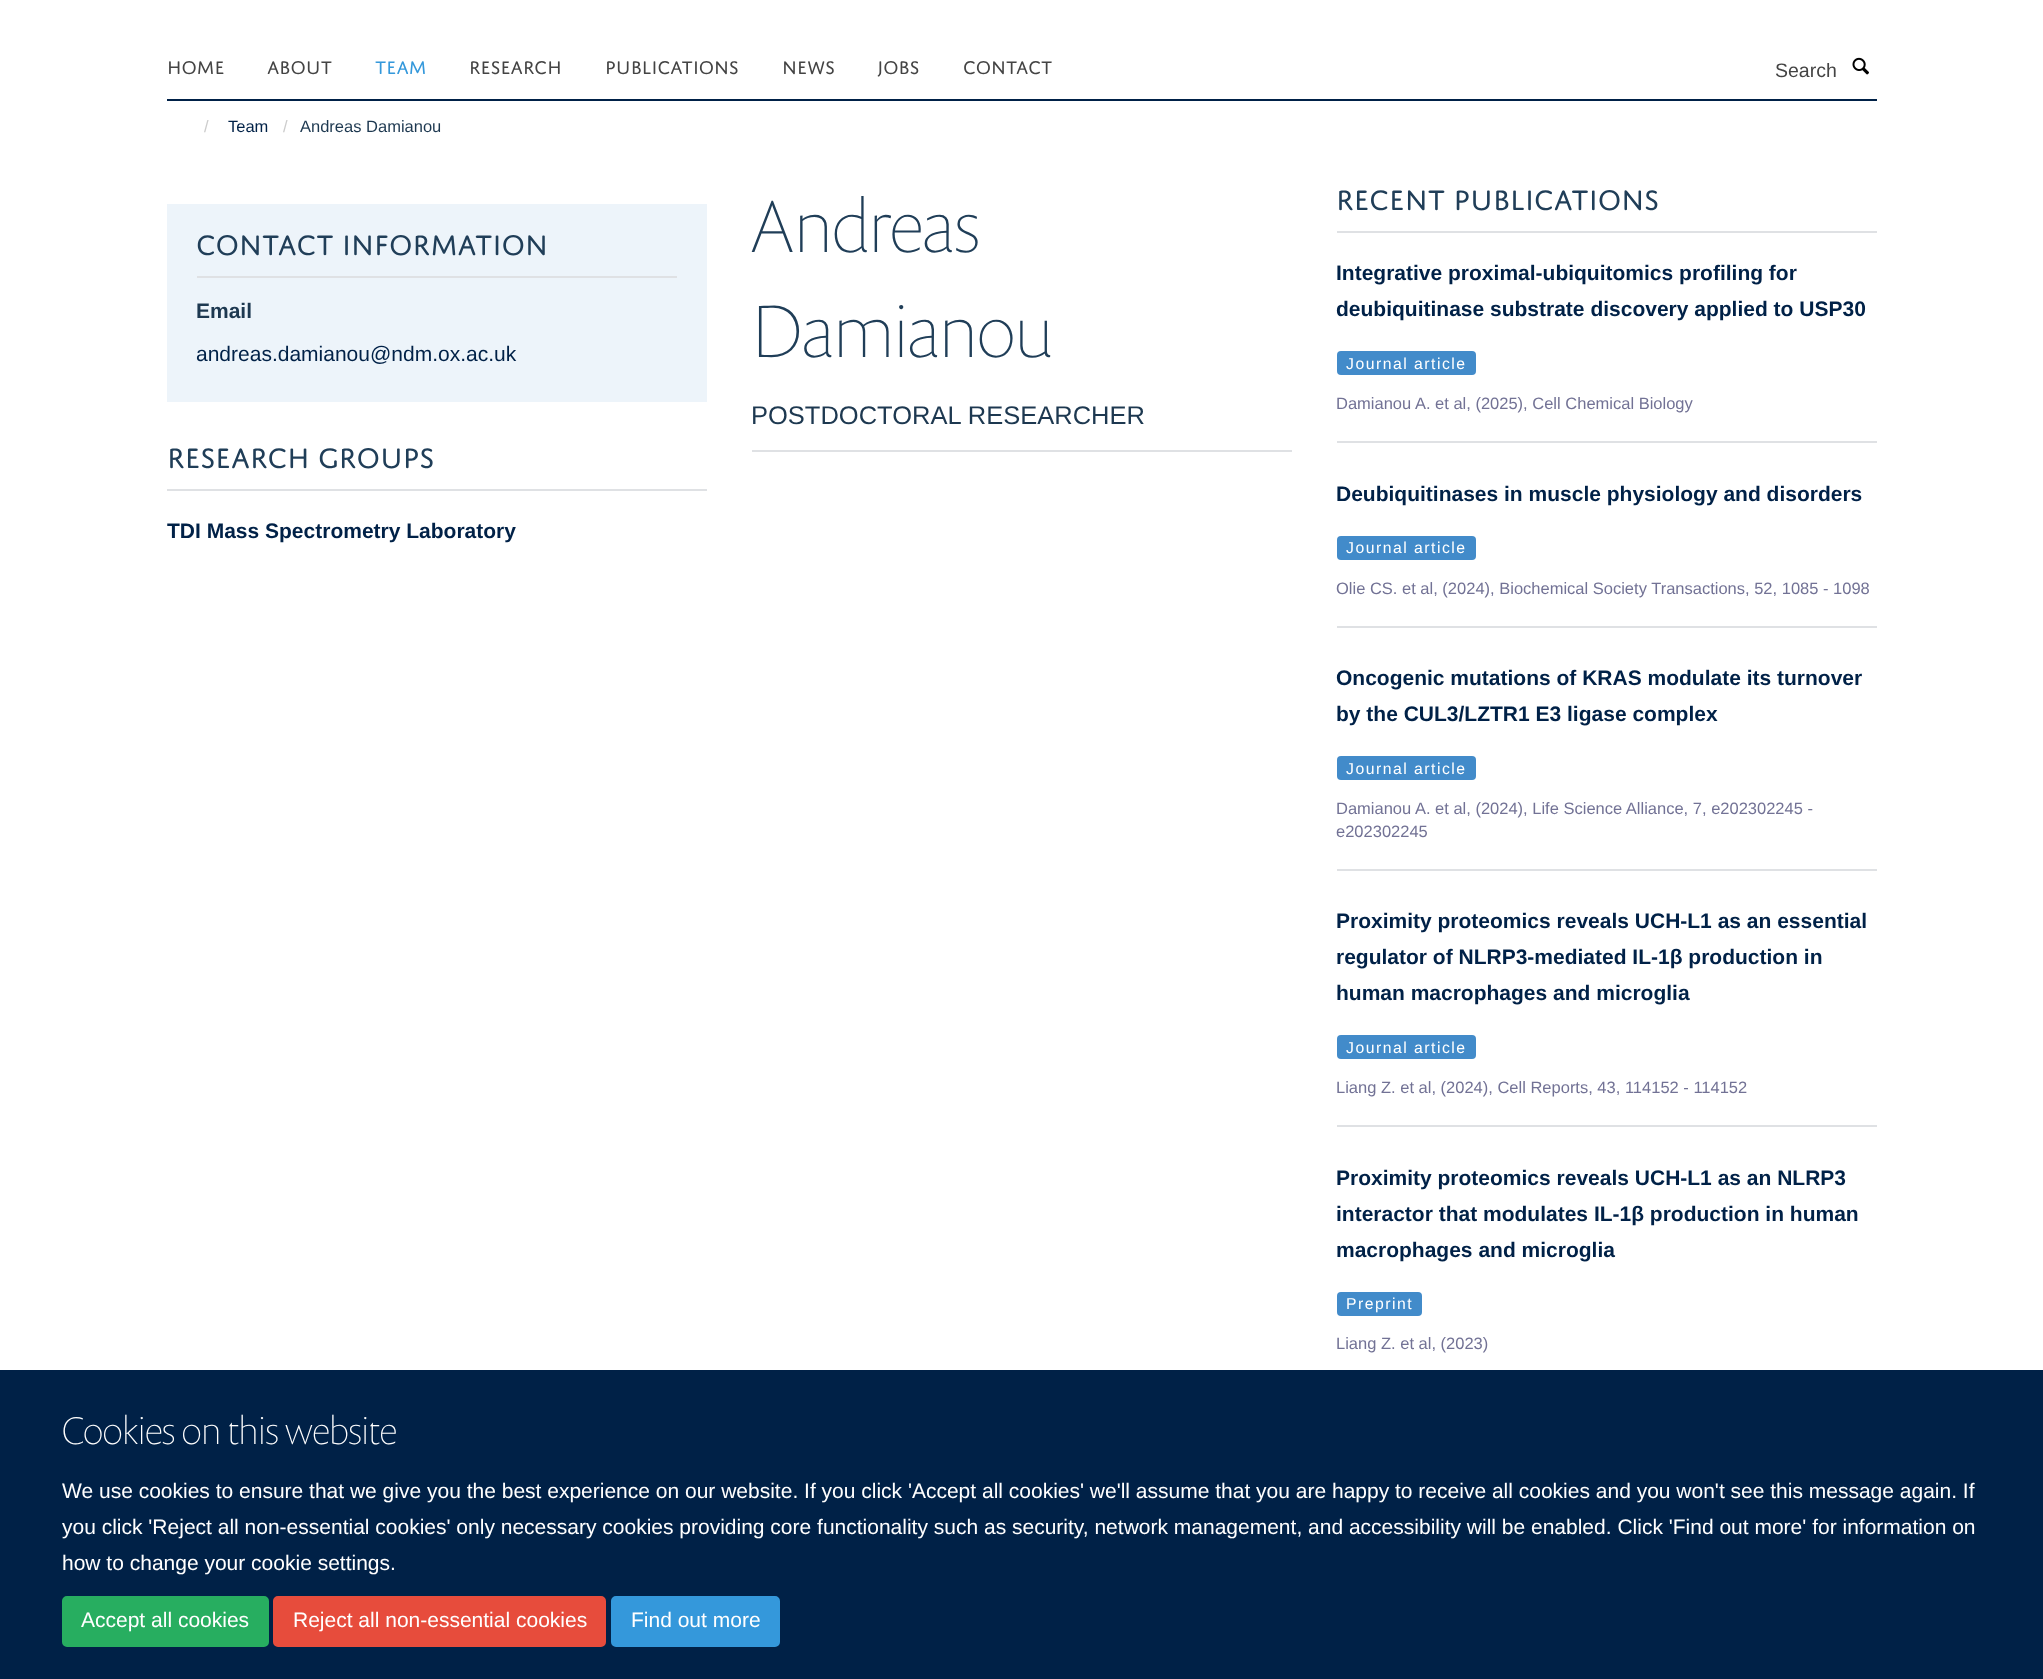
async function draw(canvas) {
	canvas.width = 2043;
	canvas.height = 1679;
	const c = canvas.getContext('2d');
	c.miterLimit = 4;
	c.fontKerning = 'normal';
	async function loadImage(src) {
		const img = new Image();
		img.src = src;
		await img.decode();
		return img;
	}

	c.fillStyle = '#fff';
	c.fillRect(0, 0, 2043, 1679);
	c.fillStyle = '#002147';
	c.fillRect(167, 99, 1710, 2);
	c.font = '19.5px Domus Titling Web';
	c.fillStyle = '#444';
	c.fillText('HOME', 167, 74);
	c.fillText('ABOUT', 267, 74);
	c.fillStyle = '#3498db';
	c.fillText('TEAM', 375, 74);
	c.fillStyle = '#444';
	for (const [text, x, y] of [
		['RESEARCH', 469, 74],
		['PUBLICATIONS', 605, 74],
		['NEWS', 782, 74],
		['JOBS', 877, 74],
		['CONTACT', 963, 74],
	]) {
		c.fillText(text, x, y);
	}
	c.font = '19.5px Liberation Sans';
	c.fillText('Search', 1775, 77);
	c.drawImage(await loadImage('img1.png'), 1852, 57, 17, 18);
	c.font = '16.5px Liberation Sans';
	c.fillStyle = '#ccc';
	c.fillText('/', 204, 132);
	c.fillStyle = '#002147';
	c.fillText('Team', 228, 132);
	c.fillStyle = '#ccc';
	c.fillText('/', 283, 132);
	c.fillStyle = '#1d3850';
	c.fillText('Andreas Damianou', 300, 132);
	c.fillStyle = '#edf4fa';
	c.fillRect(167, 204, 540, 198);
	c.fillStyle = '#dfe1e4';
	c.fillRect(197, 276, 480, 2);
	c.font = '30px Domus Titling Web';
	c.fillStyle = '#203e58';
	c.fillText('CONTACT INFORMATION', 196, 255);
	c.font = 'bold 21px Liberation Sans';
	c.fillStyle = '#1d3850';
	c.fillText('Email', 196, 318);
	c.font = '21px Liberation Sans';
	c.fillStyle = '#002147';
	c.fillText('andreas.damianou@ndm.ox.ac.uk', 196, 361);
	c.fillStyle = '#dfe1e4';
	c.fillRect(167, 489, 540, 2);
	c.font = '30px Domus Titling Web';
	c.fillStyle = '#203e58';
	c.fillText('RESEARCH GROUPS', 167, 468);
	c.save();
	c.beginPath();
	c.rect(167, 513, 540, 36);
	c.clip();
	c.font = 'bold 21px Liberation Sans';
	c.fillStyle = '#002147';
	c.fillText('TDI Mass Spectrometry Laboratory', 167, 538);
	c.restore();
	c.font = '100 75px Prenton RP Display';
	c.fillText('Andreas', 751, 252);
	c.fillText('Damianou', 751, 357);
	c.fillStyle = '#dfe1e4';
	c.fillRect(752, 450, 540, 2);
	c.font = '25.5px Liberation Sans';
	c.fillStyle = '#1d3850';
	c.fillText('POSTDOCTORAL RESEARCHER', 751, 424);
	c.fillStyle = '#dfe1e4';
	c.fillRect(1337, 231, 540, 2);
	c.font = '30px Domus Titling Web';
	c.fillStyle = '#203e58';
	c.fillText('RECENT PUBLICATIONS', 1336, 210);
	c.fillStyle = '#dfe1e4';
	c.fillRect(1337, 441, 540, 2);
	c.font = 'bold 21px Liberation Sans';
	c.fillStyle = '#002147';
	c.fillText('Integrative proximal-ubiquitomics profiling for', 1336, 280);
	c.fillText('deubiquitinase substrate discovery applied to USP30', 1336, 316);
	c.fillStyle = '#428bca';
	c.beginPath();
	c.roundRect(1337, 351, 139, 24, 4);
	c.fill();
	c.letterSpacing = '1.5px';
	c.font = '15.75px Liberation Sans';
	c.fillStyle = '#fff';
	c.fillText('Journal article', 1346, 369);
	c.letterSpacing = '0px';
	c.font = '16.5px Liberation Sans';
	c.fillStyle = '#727295';
	c.fillText('Damianou A. et al, (2025), Cell Chemical Biology', 1336, 409);
	c.fillStyle = '#dfe1e4';
	c.fillRect(1337, 626, 540, 2);
	c.font = 'bold 21px Liberation Sans';
	c.fillStyle = '#002147';
	c.fillText('Deubiquitinases in muscle physiology and disorders', 1336, 501);
	c.fillStyle = '#428bca';
	c.beginPath();
	c.roundRect(1337, 536, 139, 24, 4);
	c.fill();
	c.letterSpacing = '1.5px';
	c.font = '15.75px Liberation Sans';
	c.fillStyle = '#fff';
	c.fillText('Journal article', 1346, 553);
	c.letterSpacing = '0px';
	c.font = '16.5px Liberation Sans';
	c.fillStyle = '#727295';
	c.fillText('Olie CS. et al, (2024), Biochemical Society Transactions, 52, 1085 - 1098', 1336, 594);
	c.fillStyle = '#dfe1e4';
	c.fillRect(1337, 869, 540, 2);
	c.font = 'bold 21px Liberation Sans';
	c.fillStyle = '#002147';
	c.fillText('Oncogenic mutations of KRAS modulate its turnover', 1336, 685);
	c.fillText('by the CUL3/LZTR1 E3 ligase complex', 1336, 721);
	c.fillStyle = '#428bca';
	c.beginPath();
	c.roundRect(1337, 756, 139, 24, 4);
	c.fill();
	c.letterSpacing = '1.5px';
	c.font = '15.75px Liberation Sans';
	c.fillStyle = '#fff';
	c.fillText('Journal article', 1346, 774);
	c.letterSpacing = '0px';
	c.font = '16.5px Liberation Sans';
	c.fillStyle = '#727295';
	c.fillText('Damianou A. et al, (2024), Life Science Alliance, 7, e202302245 -', 1336, 814);
	c.fillText('e202302245', 1336, 837);
	c.fillStyle = '#dfe1e4';
	c.fillRect(1337, 1125, 540, 2);
	c.font = 'bold 21px Liberation Sans';
	c.fillStyle = '#002147';
	for (const [text, x, y] of [
		['Proximity proteomics reveals UCH-L1 as an essential', 1336, 928],
		['regulator of NLRP3-mediated IL-1β production in', 1336, 964],
		['human macrophages and microglia', 1336, 1000],
	]) {
		c.fillText(text, x, y);
	}
	c.fillStyle = '#428bca';
	c.beginPath();
	c.roundRect(1337, 1035, 139, 24, 4);
	c.fill();
	c.letterSpacing = '1.5px';
	c.font = '15.75px Liberation Sans';
	c.fillStyle = '#fff';
	c.fillText('Journal article', 1346, 1053);
	c.letterSpacing = '0px';
	c.font = '16.5px Liberation Sans';
	c.fillStyle = '#727295';
	c.fillText('Liang Z. et al, (2024), Cell Reports, 43, 114152 - 114152', 1336, 1093);
	c.font = 'bold 21px Liberation Sans';
	c.fillStyle = '#002147';
	for (const [text, x, y] of [
		['Proximity proteomics reveals UCH-L1 as an NLRP3', 1336, 1185],
		['interactor that modulates IL-1β production in human', 1336, 1221],
		['macrophages and microglia', 1336, 1257],
	]) {
		c.fillText(text, x, y);
	}
	c.fillStyle = '#428bca';
	c.beginPath();
	c.roundRect(1337, 1292, 85, 24, 4);
	c.fill();
	c.letterSpacing = '1.5px';
	c.font = '15.75px Liberation Sans';
	c.fillStyle = '#fff';
	c.fillText('Preprint', 1346, 1309);
	c.letterSpacing = '0px';
	c.font = '16.5px Liberation Sans';
	c.fillStyle = '#727295';
	c.fillText('Liang Z. et al, (2023)', 1336, 1349);
	c.fillStyle = '#002147';
	c.fillRect(0, 1370, 2043, 309);
	c.font = '100 39px Prenton RP Display';
	c.fillStyle = '#fff';
	c.fillText('Cookies on this website', 62, 1444);
	c.font = '21px Liberation Sans';
	for (const [text, x, y] of [
		['We use cookies to ensure that we give you the best experience on our website. If you click \'Accept all cookies\' we\'ll assume that you are happy to receive all cookies and you won\'t see this message again. If', 62, 1498],
		['you click \'Reject all non-essential cookies\' only necessary cookies providing core functionality such as security, network management, and accessibility will be enabled. Click \'Find out more\' for information on', 62, 1534],
		['how to change your cookie settings.', 62, 1570],
	]) {
		c.fillText(text, x, y);
	}
	c.fillStyle = '#27ae60';
	c.beginPath();
	c.roundRect(63, 1597, 205, 49, 4);
	c.fill();
	c.strokeStyle = '#27ae60';
	c.lineWidth = 2;
	c.stroke();
	c.fillStyle = '#fff';
	c.fillText('Accept all cookies', 81, 1627);
	c.fillStyle = '#e74c3c';
	c.beginPath();
	c.roundRect(274, 1597, 331, 49, 4);
	c.fill();
	c.strokeStyle = '#e74c3c';
	c.stroke();
	c.fillStyle = '#fff';
	c.fillText('Reject all non-essential cookies', 293, 1627);
	c.fillStyle = '#3498db';
	c.beginPath();
	c.roundRect(612, 1597, 167, 49, 4);
	c.fill();
	c.strokeStyle = '#3498db';
	c.stroke();
	c.fillStyle = '#fff';
	c.fillText('Find out more', 631, 1627);
}

draw(document.querySelector('canvas'));
